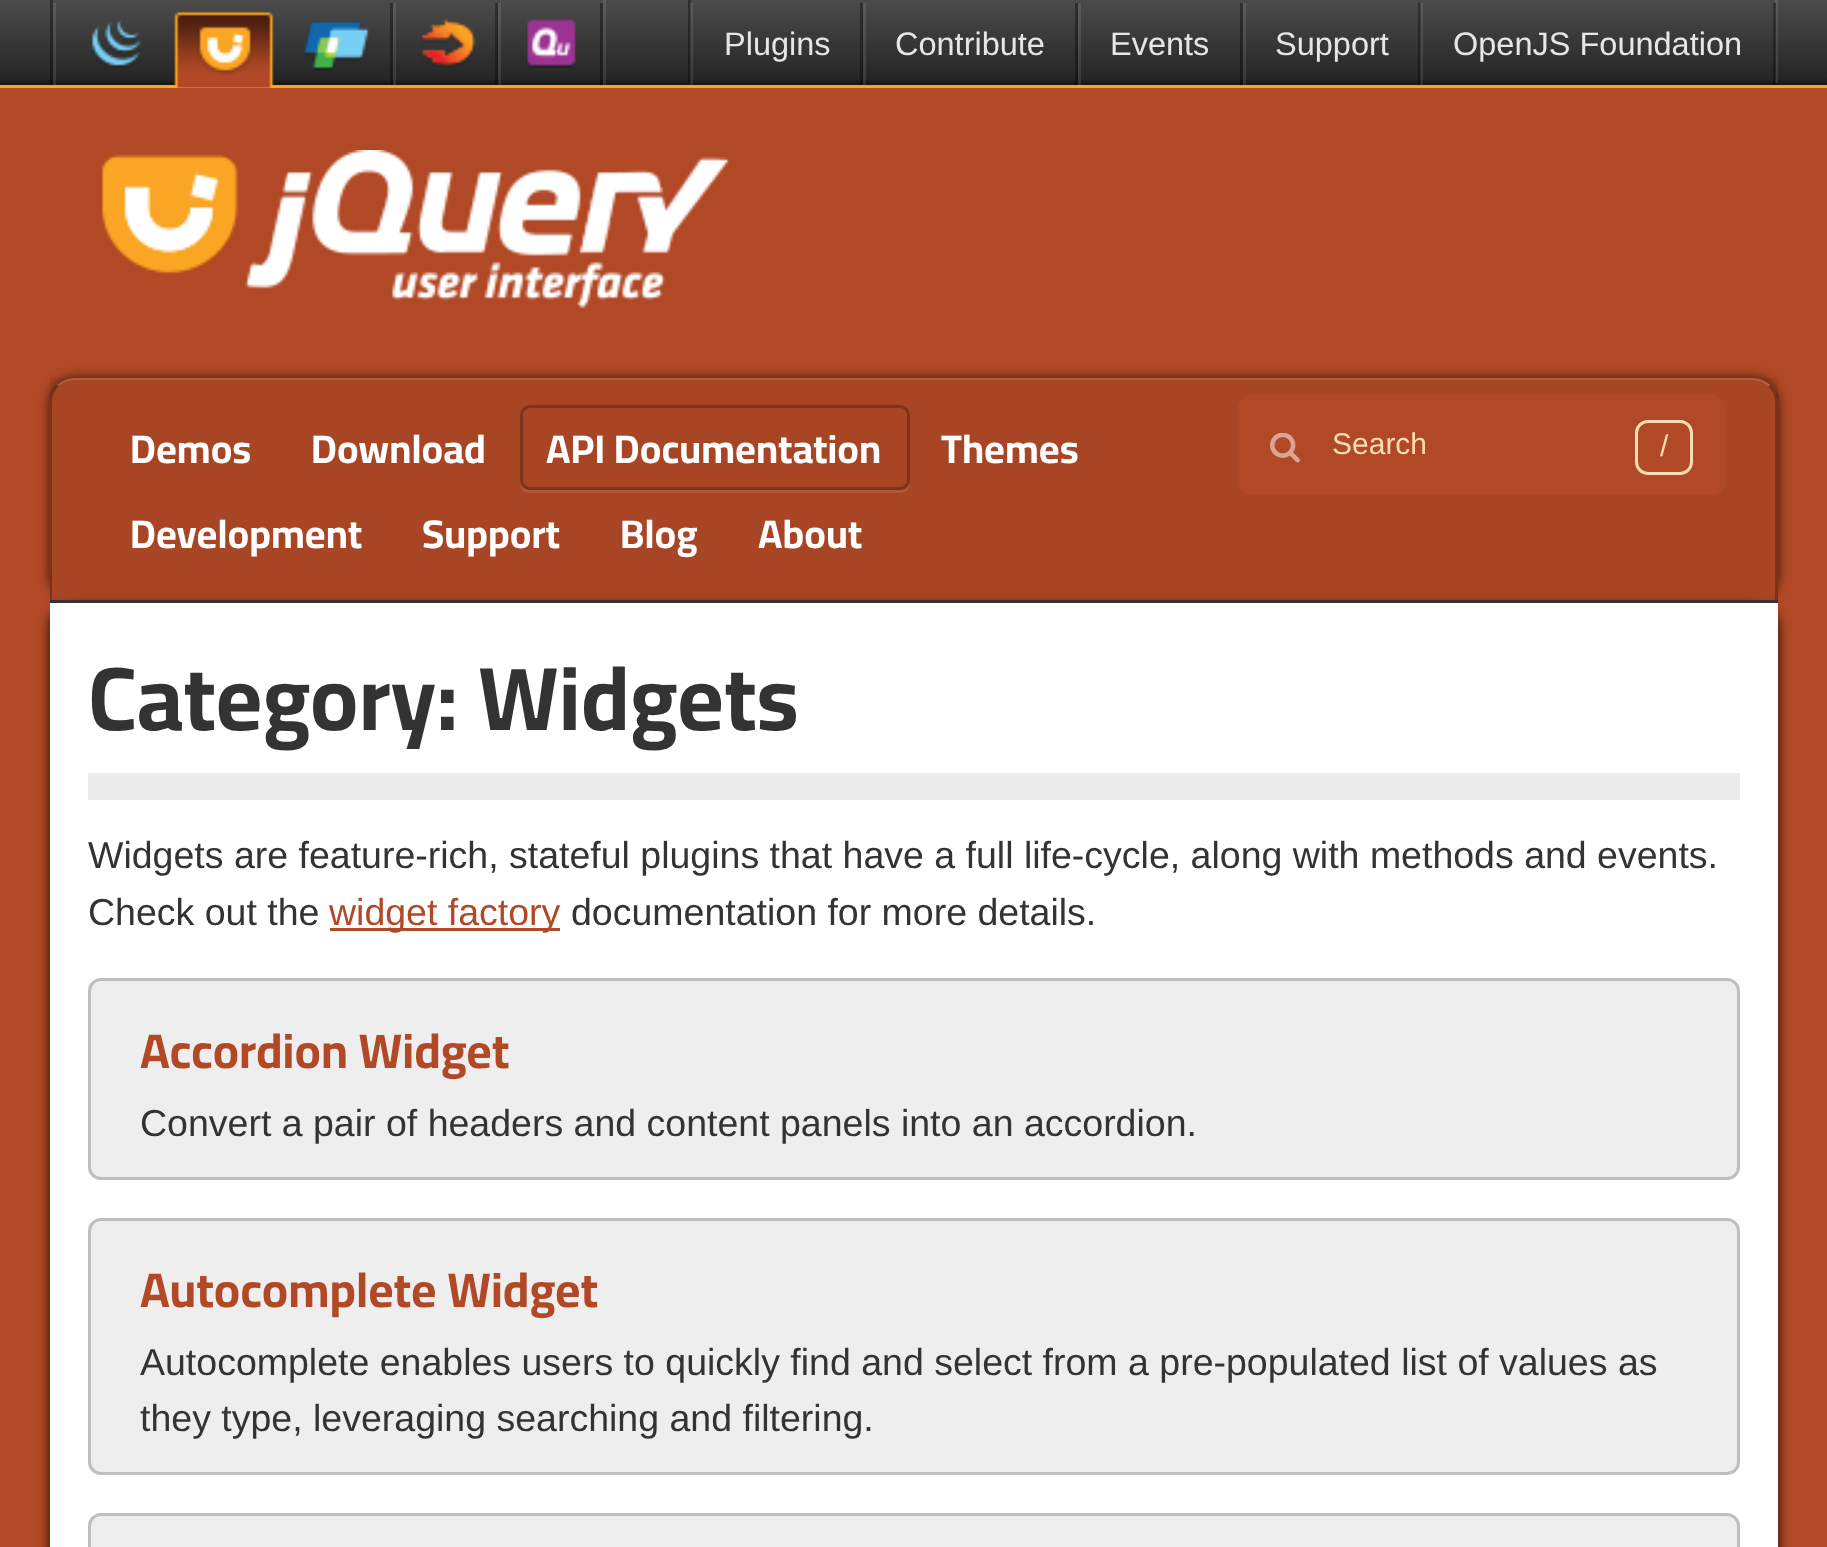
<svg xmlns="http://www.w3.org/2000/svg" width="1827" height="1547">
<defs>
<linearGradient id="g1" gradientUnits="userSpaceOnUse" x1="914" y1="0" x2="914" y2="85"><stop offset="0" stop-color="#4b4b4b"/><stop offset="1" stop-color="#232323"/></linearGradient>
<linearGradient id="g2" gradientUnits="userSpaceOnUse" x1="914" y1="0" x2="914" y2="85"><stop offset="0.92" stop-color="#141414" stop-opacity="0"/><stop offset="1" stop-color="#141414"/></linearGradient>
<clipPath id="clip1"><path d="M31 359h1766v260h-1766zm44 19h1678c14 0 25 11 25 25v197h-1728v-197c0-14 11-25 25-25z" clip-rule="evenodd"/></clipPath>
</defs>
<rect width="100%" height="100%" fill="#fff"/>
<rect width="1827" height="85" fill="url(#g1)"/>
<rect y="79" width="1827" height="6" fill="url(#g2)"/>
<rect x="603" width="3" height="85" fill="#ffffff1a"/>
<rect x="50" width="3" height="85" fill="#00000059"/>
<image x="91" y="19" width="50" height="49" href="media/1.png"/>
<rect x="53" y="3" width="3" height="82" fill="#ffffff1a"/>
<rect y="85" width="1827" height="3" fill="#faa523"/>
<image x="174" y="11" width="100" height="77" href="media/2.png"/>
<image x="304" y="21" width="65" height="50" href="media/3.png"/>
<rect x="390" y="3" width="3" height="82" fill="#00000059"/>
<image x="420" y="19" width="56" height="48" href="media/4.png"/>
<rect x="495" y="3" width="3" height="82" fill="#00000059"/>
<rect x="393" y="3" width="3" height="82" fill="#ffffff1a"/>
<image x="526" y="19" width="50" height="49" href="media/5.png"/>
<rect x="600" y="3" width="3" height="82" fill="#00000059"/>
<rect x="498" y="3" width="3" height="82" fill="#ffffff1a"/>
<rect x="1775" width="3" height="83" fill="#ffffff1a"/>
<rect x="688" width="3" height="83" fill="#00000059"/>
<rect x="860" y="3" width="3" height="82" fill="#00000059"/>
<rect x="690" y="3" width="3" height="82" fill="#ffffff1a"/>
<text x="724" y="55" style="font-family:Liberation Sans;font-size:32.5px;fill:#e6e6e6">Plugins</text>
<rect x="1075" y="3" width="3" height="82" fill="#00000059"/>
<rect x="863" y="3" width="3" height="82" fill="#ffffff1a"/>
<text x="895" y="55" style="font-family:Liberation Sans;font-size:32.5px;fill:#e6e6e6">Contribute</text>
<rect x="1240" y="3" width="3" height="82" fill="#00000059"/>
<rect x="1078" y="3" width="3" height="82" fill="#ffffff1a"/>
<text x="1110" y="55" style="font-family:Liberation Sans;font-size:32.5px;fill:#e6e6e6">Events</text>
<rect x="1418" y="3" width="3" height="82" fill="#00000059"/>
<rect x="1243" y="3" width="3" height="82" fill="#ffffff1a"/>
<text x="1275" y="55" style="font-family:Liberation Sans;font-size:32.5px;fill:#e6e6e6">Support</text>
<rect x="1773" y="3" width="3" height="82" fill="#00000059"/>
<rect x="1420" y="3" width="3" height="82" fill="#ffffff1a"/>
<text x="1453" y="55" style="font-family:Liberation Sans;font-size:32.5px;fill:#e6e6e6">OpenJS Foundation</text>
<rect y="88" width="1827" height="1459" fill="#b24926"/>
<image x="101" y="150" width="628" height="159" href="media/6.png"/>
<g clip-path="url(#clip1)">
<rect x="50" y="378" width="1728" height="222" rx="25" fill="#010101b3" filter="blur(6px)"/>
</g>
<rect x="50" y="378" width="1728" height="222" fill="#0c0c0c0f"/>
<path d="M75 378h1677c7 0 13 3 18 7l-2 2c-4-4-9-7-16-7h-1677c-6 0-12 2-16 6l-2-1c5-4 11-7 18-7z" fill="#fafafa24"/>
<path d="M1770 385c4 3 6 8 8 12v203h-3v-198c0-6-2-11-7-15z" fill="#02020247"/>
<path d="M50 600h2v-198c0-6 3-12 7-16l-2-1c-4 4-7 10-7 17z" fill="#02020247"/>
<text x="130" y="463" style="font-family:Cairo;font-size:40px;font-weight:bold;fill:#fff">Demos</text>
<text x="311" y="463" style="font-family:Cairo;font-size:40px;font-weight:bold;fill:#fff">Download</text>
<path d="M520 480v3c0 6 4 10 10 10h370c6 0 10-4 10-10v-3c0 6-4 10-10 10h-370c-6 0-10-4-10-10z" fill="#b1583a"/>
<rect x="521.5" y="406.5" width="387" height="82" rx="8.5" fill="none" stroke="#00000040" stroke-width="3"/>
<text x="546" y="463" style="font-family:Cairo;font-size:40px;font-weight:bold;fill:#fff">API Documentation</text>
<text x="941" y="463" style="font-family:Cairo;font-size:40px;font-weight:bold;fill:#fff">Themes</text>
<text x="130" y="548" style="font-family:Cairo;font-size:40px;font-weight:bold;fill:#fff">Development</text>
<text x="422" y="548" style="font-family:Cairo;font-size:40px;font-weight:bold;fill:#fff">Support</text>
<text x="620" y="548" style="font-family:Cairo;font-size:40px;font-weight:bold;fill:#fff">Blog</text>
<text x="758" y="548" style="font-family:Cairo;font-size:40px;font-weight:bold;fill:#fff">About</text>
<rect x="1238" y="395" width="487" height="100" rx="13" fill="#b24926"/>
<image x="1270" y="433" width="30" height="30" href="media/7.png"/>
<text x="1332" y="454" style="font-family:Liberation Sans;font-size:30px;fill:#ffddb2">Search</text>
<rect x="1636.5" y="421.5" width="55" height="52" rx="11.5" fill="none" stroke="#ffddb2" stroke-width="3"/>
<text x="1660" y="456" style="font-family:Liberation Sans;font-size:30px;fill:#ffddb2">/</text>
<rect x="65" y="608" width="1713" height="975" rx="18" fill="#010101de" filter="blur(6px)"/>
<rect x="50" y="608" width="1713" height="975" rx="18" fill="#010101de" filter="blur(6px)"/>
<rect x="50" y="603" width="1728" height="944" fill="#fff"/>
<rect x="50" y="600" width="1728" height="3" fill="#333"/>
<text x="88" y="730" style="font-family:Cairo;font-size:90px;font-weight:bold;fill:#333">Category: Widgets</text>
<rect x="88" y="773" width="1652" height="27" fill="#ececec"/>
<text x="88" y="868" style="font-family:Liberation Sans;font-size:37.5px;fill:#333">Widgets are feature-rich, stateful plugins that have a full life-cycle, along with methods and events.</text>
<text x="88" y="925" style="font-family:Liberation Sans;font-size:37.5px;fill:#333">Check out the</text>
<rect x="330" y="928" width="230" height="3" fill="#b24926"/>
<text x="329" y="925" style="font-family:Liberation Sans;font-size:37.5px;fill:#b24926">widget factory</text>
<text x="571" y="925" style="font-family:Liberation Sans;font-size:37.5px;fill:#333">documentation for more details.</text>
<rect x="88" y="978" width="1652" height="202" rx="13" fill="#eee"/>
<rect x="89.5" y="979.5" width="1649" height="199" rx="11.5" fill="none" stroke="#00000033" stroke-width="3"/>
<text x="140" y="1068" style="font-family:Cairo;font-size:48.75px;font-weight:bold;fill:#b24926">Accordion Widget</text>
<text x="140" y="1136" style="font-family:Liberation Sans;font-size:37.5px;fill:#333">Convert a pair of headers and content panels into an accordion.</text>
<rect x="88" y="1218" width="1652" height="257" rx="13" fill="#eee"/>
<rect x="89.5" y="1219.5" width="1649" height="254" rx="11.5" fill="none" stroke="#00000033" stroke-width="3"/>
<text x="140" y="1307" style="font-family:Cairo;font-size:48.75px;font-weight:bold;fill:#b24926">Autocomplete Widget</text>
<text x="140" y="1375" style="font-family:Liberation Sans;font-size:37.5px;fill:#333">Autocomplete enables users to quickly find and select from a pre-populated list of values as</text>
<text x="140" y="1431" style="font-family:Liberation Sans;font-size:37.5px;fill:#333">they type, leveraging searching and filtering.</text>
<rect x="88" y="1513" width="1652" height="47" rx="13" fill="#eee"/>
<rect x="89.5" y="1514.5" width="1649" height="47" rx="11.5" fill="none" stroke="#00000033" stroke-width="3"/>
</svg>
